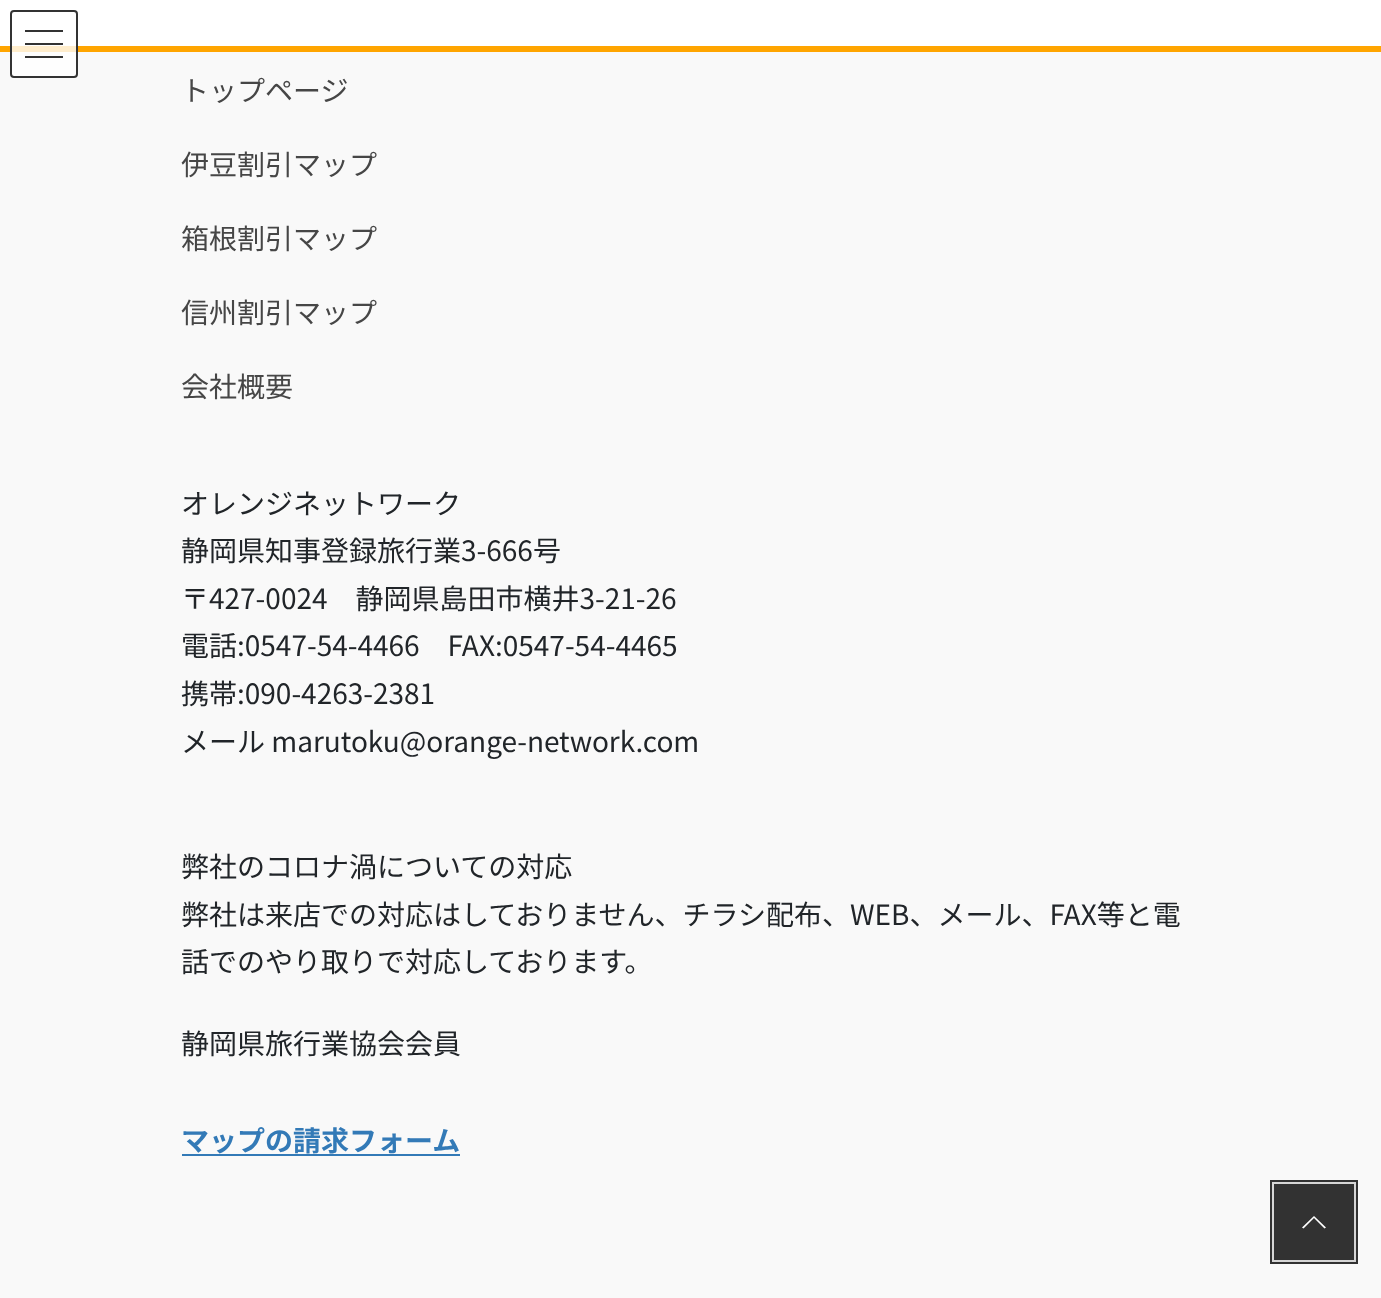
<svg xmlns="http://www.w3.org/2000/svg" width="1381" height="1298">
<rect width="100%" height="100%" fill="#fff"/>
<rect y="52" width="1381" height="1246" fill="#f9f9f9"/>
<rect y="46" width="1381" height="6" fill="#ffa500"/>
<rect x="10" y="10" width="68" height="68" rx="4" fill="#ffffffcc"/>
<rect x="25" y="30" width="38" height="2" fill="#333"/>
<rect x="25" y="43" width="38" height="2" fill="#333"/>
<rect x="25" y="56" width="38" height="2" fill="#333"/>
<rect x="11" y="11" width="66" height="66" rx="3" fill="none" stroke="#333" stroke-width="2"/>
<text x="181" y="101" style="font-family:Noto Sans JP;font-size:28px;fill:#464646">トップページ</text>
<text x="181" y="175" style="font-family:Noto Sans JP;font-size:28px;fill:#464646">伊豆割引マップ</text>
<text x="181" y="249" style="font-family:Noto Sans JP;font-size:28px;fill:#464646">箱根割引マップ</text>
<text x="181" y="323" style="font-family:Noto Sans JP;font-size:28px;fill:#464646">信州割引マップ</text>
<text x="181" y="397" style="font-family:Noto Sans JP;font-size:28px;fill:#464646">会社概要</text>
<text x="181" y="514" style="font-family:Noto Sans JP;font-size:28px;fill:#212529">オレンジネットワーク</text>
<text x="181" y="561" style="font-family:Noto Sans JP;font-size:28px;fill:#212529">静岡県知事登録旅行業3-666号</text>
<text x="181" y="609" style="font-family:Noto Sans JP;font-size:28px;fill:#212529">〒427-0024　静岡県島田市横井3-21-26</text>
<text x="181" y="656" style="font-family:Noto Sans JP;font-size:28px;fill:#212529">電話:0547-54-4466　FAX:0547-54-4465</text>
<text x="181" y="704" style="font-family:Noto Sans JP;font-size:28px;fill:#212529">携帯:090-4263-2381</text>
<text x="181" y="752" style="font-family:Noto Sans JP;font-size:28px;fill:#212529">メール marutoku@orange-network.com</text>
<text x="181" y="877" style="font-family:Noto Sans JP;font-size:28px;fill:#212529">弊社のコロナ渦についての対応</text>
<text x="181" y="925" style="font-family:Noto Sans JP;font-size:28px;fill:#212529">弊社は来店での対応はしておりません、チラシ配布、WEB、メール、FAX等と電</text>
<text x="181" y="972" style="font-family:Noto Sans JP;font-size:28px;fill:#212529">話でのやり取りで対応しております。</text>
<text x="181" y="1054" style="font-family:Noto Sans JP;font-size:28px;fill:#212529">静岡県旅行業協会会員</text>
<text x="181" y="1151" style="font-family:Noto Sans JP;font-size:28px;font-weight:bold;fill:#337ab7">マップの請求フォーム</text>
<rect x="182" y="1154" width="278" height="2" fill="#337ab7"/>
<rect x="1272" y="1182" width="84" height="80" fill="none" stroke="#323232" stroke-width="4"/>
<rect x="1273" y="1183" width="82" height="78" fill="none" stroke="#d6d6d6" stroke-width="2"/>
<rect x="1274" y="1184" width="80" height="76" fill="#323232"/>
<path d="M1326 1227.5l-1.5 1l-10.5-10.5l-10.5 10.5l-1.5-1l12-11.5z" fill="#fff"/>
</svg>
